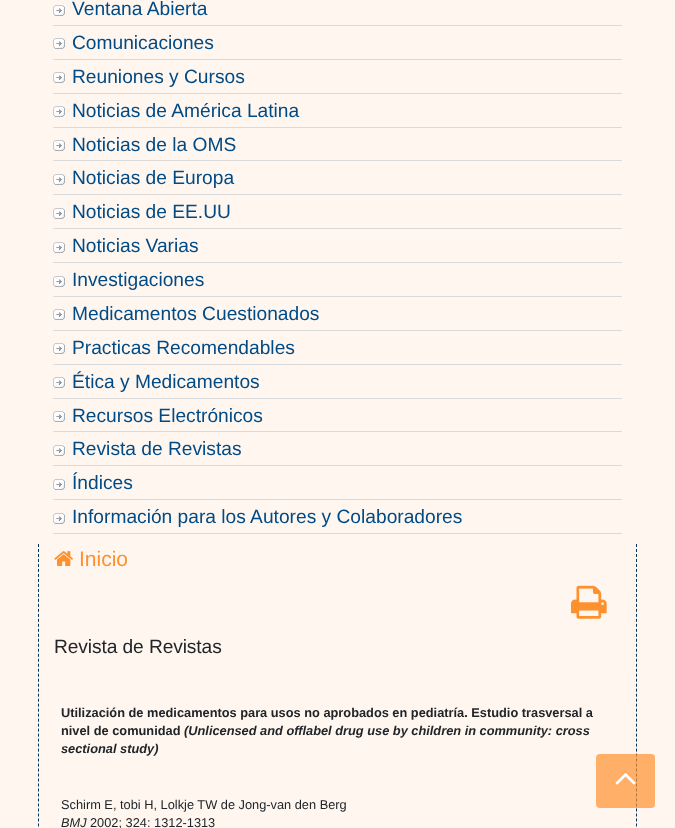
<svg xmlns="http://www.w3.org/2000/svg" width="675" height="828">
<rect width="100%" height="100%" fill="#fff7ef"/>
<image x="53" y="5" width="12" height="11" href="media/1.png"/>
<rect x="53" y="25" width="569" height="1" fill="#dadada"/>
<text x="72" y="15" style="font-family:Liberation Sans;font-size:19.2px;fill:#004a86">Ventana Abierta</text>
<image x="53" y="38" width="12" height="11" href="media/1.png"/>
<rect x="53" y="59" width="569" height="1" fill="#dadada"/>
<text x="72" y="49" style="font-family:Liberation Sans;font-size:19.2px;fill:#004a86">Comunicaciones</text>
<image x="53" y="72" width="12" height="11" href="media/1.png"/>
<rect x="53" y="93" width="569" height="1" fill="#dadada"/>
<text x="72" y="83" style="font-family:Liberation Sans;font-size:19.2px;fill:#004a86">Reuniones y Cursos</text>
<image x="53" y="106" width="12" height="11" href="media/1.png"/>
<rect x="53" y="127" width="569" height="1" fill="#dadada"/>
<text x="72" y="117" style="font-family:Liberation Sans;font-size:19.2px;fill:#004a86">Noticias de América Latina</text>
<image x="53" y="140" width="12" height="11" href="media/1.png"/>
<rect x="53" y="160" width="569" height="1" fill="#dadada"/>
<text x="72" y="151" style="font-family:Liberation Sans;font-size:19.2px;fill:#004a86">Noticias de la OMS</text>
<image x="53" y="174" width="12" height="11" href="media/1.png"/>
<rect x="53" y="194" width="569" height="1" fill="#dadada"/>
<text x="72" y="184" style="font-family:Liberation Sans;font-size:19.2px;fill:#004a86">Noticias de Europa</text>
<image x="53" y="208" width="12" height="11" href="media/1.png"/>
<rect x="53" y="228" width="569" height="1" fill="#dadada"/>
<text x="72" y="218" style="font-family:Liberation Sans;font-size:19.2px;fill:#004a86">Noticias de EE.UU</text>
<image x="53" y="242" width="12" height="11" href="media/1.png"/>
<rect x="53" y="262" width="569" height="1" fill="#dadada"/>
<text x="72" y="252" style="font-family:Liberation Sans;font-size:19.2px;fill:#004a86">Noticias Varias</text>
<image x="53" y="276" width="12" height="11" href="media/1.png"/>
<rect x="53" y="296" width="569" height="1" fill="#dadada"/>
<text x="72" y="286" style="font-family:Liberation Sans;font-size:19.2px;fill:#004a86">Investigaciones</text>
<image x="53" y="309" width="12" height="11" href="media/1.png"/>
<rect x="53" y="330" width="569" height="1" fill="#dadada"/>
<text x="72" y="320" style="font-family:Liberation Sans;font-size:19.2px;fill:#004a86">Medicamentos Cuestionados</text>
<image x="53" y="343" width="12" height="11" href="media/1.png"/>
<rect x="53" y="364" width="569" height="1" fill="#dadada"/>
<text x="72" y="354" style="font-family:Liberation Sans;font-size:19.2px;fill:#004a86">Practicas Recomendables</text>
<image x="53" y="377" width="12" height="11" href="media/1.png"/>
<rect x="53" y="398" width="569" height="1" fill="#dadada"/>
<text x="72" y="388" style="font-family:Liberation Sans;font-size:19.2px;fill:#004a86">Ética y Medicamentos</text>
<image x="53" y="411" width="12" height="11" href="media/1.png"/>
<rect x="53" y="431" width="569" height="1" fill="#dadada"/>
<text x="72" y="422" style="font-family:Liberation Sans;font-size:19.2px;fill:#004a86">Recursos Electrónicos</text>
<image x="53" y="445" width="12" height="11" href="media/1.png"/>
<rect x="53" y="465" width="569" height="1" fill="#dadada"/>
<text x="72" y="455" style="font-family:Liberation Sans;font-size:19.2px;fill:#004a86">Revista de Revistas</text>
<image x="53" y="479" width="12" height="11" href="media/1.png"/>
<rect x="53" y="499" width="569" height="1" fill="#dadada"/>
<text x="72" y="489" style="font-family:Liberation Sans;font-size:19.2px;fill:#004a86">Índices</text>
<image x="53" y="513" width="12" height="11" href="media/1.png"/>
<rect x="53" y="533" width="569" height="1" fill="#dadada"/>
<text x="72" y="523" style="font-family:Liberation Sans;font-size:19.2px;fill:#004a86">Información para los Autores y Colaboradores</text>
<path d="M636.5 544v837" fill="none" stroke="#00335e" stroke-dasharray="3 1.99"/>
<path d="M38.5 544v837" fill="none" stroke="#00335e" stroke-dasharray="3 1.99"/>
<image x="54" y="551" width="19" height="15" href="media/2.png"/>
<text x="79" y="566" style="font-family:Liberation Sans;font-size:21px;fill:#ff902e">Inicio</text>
<image x="571" y="585" width="36" height="34" href="media/3.png"/>
<text x="54" y="653" style="font-family:Liberation Sans;font-size:19.2px;letter-spacing:-0.1px;fill:#212529">Revista de Revistas</text>
<text x="61" y="717" style="font-family:Liberation Sans;font-size:12.8px;font-weight:bold;fill:#212529">Utilización de medicamentos para usos no aprobados en pediatría. Estudio trasversal a</text>
<text x="61" y="735" style="font-family:Liberation Sans;font-size:12.8px;font-weight:bold;fill:#212529">nivel de comunidad</text>
<text x="184" y="735" style="font-family:Liberation Sans;font-size:12.8px;font-weight:bold;font-style:italic;fill:#212529">(Unlicensed and offlabel drug use by children in community: cross</text>
<text x="61" y="753" style="font-family:Liberation Sans;font-size:12.8px;font-weight:bold;font-style:italic;fill:#212529">sectional study)</text>
<text x="61" y="809" style="font-family:Liberation Sans;font-size:12.8px;fill:#212529">Schirm E, tobi H, Lolkje TW de Jong-van den Berg</text>
<text x="61" y="827" style="font-family:Liberation Sans;font-size:12.8px;font-style:italic;fill:#212529">BMJ</text>
<text x="90" y="827" style="font-family:Liberation Sans;font-size:12.8px;fill:#212529">2002; 324: 1312-1313</text>
<rect x="596" y="754" width="59" height="54" rx="4" fill="#ff902eb3"/>
<image x="615" y="773" width="21" height="12" href="media/4.png"/>
</svg>
